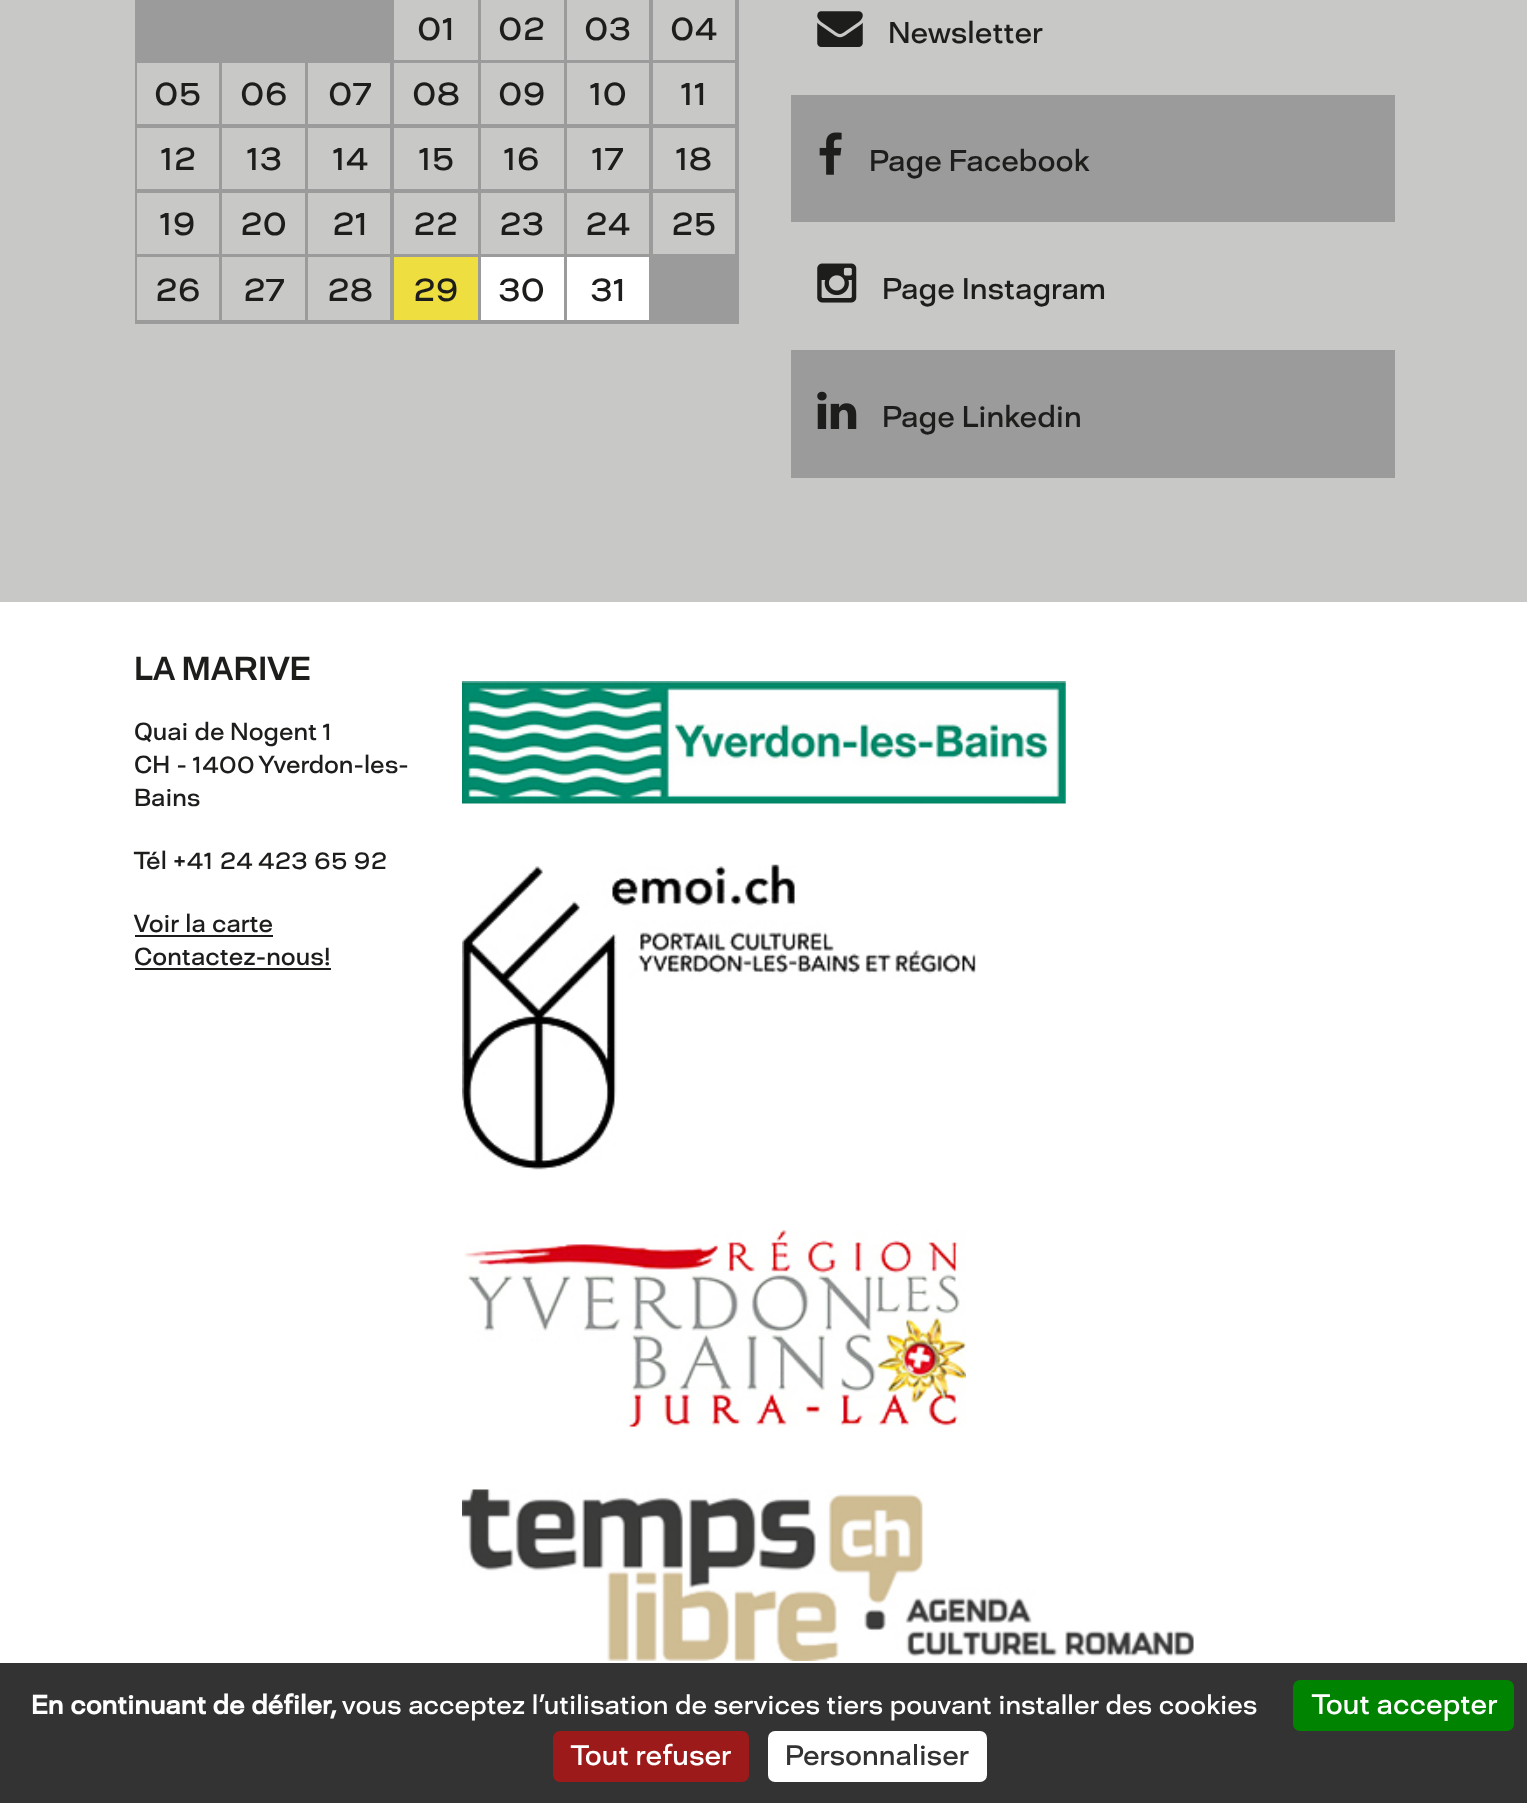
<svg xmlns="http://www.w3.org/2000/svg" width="1527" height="1803">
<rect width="100%" height="100%" fill="#c8c8c7"/>
<rect x="135" width="604" height="324" fill="#9b9b9b"/>
<rect x="394" width="84" height="60" fill="#c8c8c7"/>
<text x="417" y="40" style="font-family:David;font-size:33.25px;fill:#1d1d1b">01</text>
<rect x="481" width="83" height="60" fill="#c8c8c7"/>
<text x="498" y="40" style="font-family:David;font-size:33.25px;fill:#1d1d1b">02</text>
<rect x="567" width="82" height="60" fill="#c8c8c7"/>
<text x="584" y="40" style="font-family:David;font-size:33.25px;fill:#1d1d1b">03</text>
<rect x="653" width="82" height="60" fill="#c8c8c7"/>
<text x="670" y="40" style="font-family:David;font-size:33.25px;fill:#1d1d1b">04</text>
<rect x="137" y="63" width="82" height="61" fill="#c8c8c7"/>
<text x="154" y="105" style="font-family:David;font-size:33.25px;fill:#1d1d1b">05</text>
<rect x="222" y="63" width="83" height="61" fill="#c8c8c7"/>
<text x="240" y="105" style="font-family:David;font-size:33.25px;fill:#1d1d1b">06</text>
<rect x="308" y="63" width="82" height="61" fill="#c8c8c7"/>
<text x="328" y="105" style="font-family:David;font-size:33.25px;fill:#1d1d1b">07</text>
<rect x="394" y="63" width="84" height="61" fill="#c8c8c7"/>
<text x="412" y="105" style="font-family:David;font-size:33.25px;fill:#1d1d1b">08</text>
<rect x="481" y="63" width="83" height="61" fill="#c8c8c7"/>
<text x="498" y="105" style="font-family:David;font-size:33.25px;fill:#1d1d1b">09</text>
<rect x="567" y="63" width="82" height="61" fill="#c8c8c7"/>
<text x="589" y="105" style="font-family:David;font-size:33.25px;fill:#1d1d1b">10</text>
<rect x="653" y="63" width="82" height="61" fill="#c8c8c7"/>
<text x="680" y="105" style="font-family:David;font-size:33.25px;fill:#1d1d1b">11</text>
<rect x="137" y="128" width="82" height="61" fill="#c8c8c7"/>
<text x="160" y="170" style="font-family:David;font-size:33.25px;fill:#1d1d1b">12</text>
<rect x="222" y="128" width="83" height="61" fill="#c8c8c7"/>
<text x="246" y="170" style="font-family:David;font-size:33.25px;fill:#1d1d1b">13</text>
<rect x="308" y="128" width="82" height="61" fill="#c8c8c7"/>
<text x="332" y="170" style="font-family:David;font-size:33.25px;fill:#1d1d1b">14</text>
<rect x="394" y="128" width="84" height="61" fill="#c8c8c7"/>
<text x="418" y="170" style="font-family:David;font-size:33.25px;fill:#1d1d1b">15</text>
<rect x="481" y="128" width="83" height="61" fill="#c8c8c7"/>
<text x="503" y="170" style="font-family:David;font-size:33.25px;fill:#1d1d1b">16</text>
<rect x="567" y="128" width="82" height="61" fill="#c8c8c7"/>
<text x="591" y="170" style="font-family:David;font-size:33.25px;fill:#1d1d1b">17</text>
<rect x="653" y="128" width="82" height="61" fill="#c8c8c7"/>
<text x="675" y="170" style="font-family:David;font-size:33.25px;fill:#1d1d1b">18</text>
<rect x="137" y="193" width="82" height="61" fill="#c8c8c7"/>
<text x="159" y="235" style="font-family:David;font-size:33.25px;fill:#1d1d1b">19</text>
<rect x="222" y="193" width="83" height="61" fill="#c8c8c7"/>
<text x="240" y="235" style="font-family:David;font-size:33.25px;fill:#1d1d1b">20</text>
<rect x="308" y="193" width="82" height="61" fill="#c8c8c7"/>
<text x="332" y="235" style="font-family:David;font-size:33.25px;fill:#1d1d1b">21</text>
<rect x="394" y="193" width="84" height="61" fill="#c8c8c7"/>
<text x="413" y="235" style="font-family:David;font-size:33.25px;fill:#1d1d1b">22</text>
<rect x="481" y="193" width="83" height="61" fill="#c8c8c7"/>
<text x="499" y="235" style="font-family:David;font-size:33.25px;fill:#1d1d1b">23</text>
<rect x="567" y="193" width="82" height="61" fill="#c8c8c7"/>
<text x="585" y="235" style="font-family:David;font-size:33.25px;fill:#1d1d1b">24</text>
<rect x="653" y="193" width="82" height="61" fill="#c8c8c7"/>
<text x="671" y="235" style="font-family:David;font-size:33.25px;fill:#1d1d1b">25</text>
<rect x="137" y="257" width="82" height="63" fill="#c8c8c7"/>
<text x="155" y="301" style="font-family:David;font-size:33.25px;fill:#1d1d1b">26</text>
<rect x="222" y="257" width="83" height="63" fill="#c8c8c7"/>
<text x="243" y="301" style="font-family:David;font-size:33.25px;fill:#1d1d1b">27</text>
<rect x="308" y="257" width="82" height="63" fill="#c8c8c7"/>
<text x="327" y="301" style="font-family:David;font-size:33.25px;fill:#1d1d1b">28</text>
<rect x="394" y="257" width="84" height="63" fill="#efde3f"/>
<text x="413" y="301" style="font-family:David;font-size:33.25px;fill:#1d1d1b">29</text>
<rect x="481" y="257" width="83" height="63" fill="#fff"/>
<text x="498" y="301" style="font-family:David;font-size:33.25px;fill:#1d1d1b">30</text>
<rect x="567" y="257" width="82" height="63" fill="#fff"/>
<text x="590" y="301" style="font-family:David;font-size:33.25px;fill:#1d1d1b">31</text>
<image x="817" y="11" width="46" height="36" href="media/1.png"/>
<text x="888" y="43" style="font-family:David;font-size:29.75px;fill:#1d1d1b">Newsletter</text>
<rect x="791" y="95" width="604" height="127" fill="#9b9b9b"/>
<image x="819" y="132" width="23" height="43" href="media/2.png"/>
<text x="869" y="171" style="font-family:David;font-size:29.75px;fill:#1d1d1b">Page Facebook</text>
<image x="817" y="263" width="40" height="40" href="media/3.png"/>
<text x="882" y="299" style="font-family:David;font-size:29.75px;fill:#1d1d1b">Page Instagram</text>
<rect x="791" y="350" width="604" height="128" fill="#9b9b9b"/>
<image x="817" y="391" width="40" height="38" href="media/4.png"/>
<text x="882" y="427" style="font-family:David;font-size:29.75px;fill:#1d1d1b">Page Linkedin</text>
<rect y="602" width="1527" height="1061" fill="#fff"/>
<text x="134" y="680" style="font-family:David;font-size:33.25px;font-weight:500;fill:#1d1d1b">LA MARIVE</text>
<text x="134" y="740" style="font-family:David;font-size:24.5px;fill:#1d1d1b">Quai de Nogent 1</text>
<text x="134" y="773" style="font-family:David;font-size:24.5px;fill:#1d1d1b">CH - 1400 Yverdon-les-</text>
<text x="134" y="806" style="font-family:David;font-size:24.5px;fill:#1d1d1b">Bains</text>
<text x="134" y="869" style="font-family:David;font-size:24.5px;fill:#1d1d1b">Tél +41 24 423 65 92</text>
<text x="134" y="932" style="font-family:David;font-size:24.5px;fill:#1d1d1b">Voir la carte</text>
<rect x="135" y="935" width="138" height="2" fill="#1d1d1b"/>
<text x="134" y="965" style="font-family:David;font-size:24.5px;fill:#1d1d1b">Contactez-nous!</text>
<rect x="135" y="968" width="196" height="2" fill="#1d1d1b"/>
<image x="462" y="681" width="604" height="123" href="media/5.png"/>
<image x="462" y="864" width="514" height="306" href="media/6.png"/>
<image x="464" y="1230" width="502" height="199" href="media/7.png"/>
<image x="462" y="1489" width="732" height="172" href="media/8.png"/>
<rect y="1666" width="672" height="9" fill="#fff" filter="blur(2px)"/>
<rect y="1663" width="1527" height="140" fill="#333"/>
<text x="31" y="1714" style="font-family:David;font-size:26.25px;font-weight:bold;fill:#fff">En continuant de défiler,</text>
<text x="342" y="1714" style="font-family:David;font-size:26.25px;fill:#fff">vous acceptez l'utilisation de services tiers pouvant installer des cookies</text>
<rect x="1293" y="1680" width="221" height="51" rx="7" fill="#008300"/>
<text x="1312" y="1714" style="font-family:David;font-size:28px;fill:#fff">Tout accepter</text>
<rect x="553" y="1731" width="196" height="51" rx="7" fill="#9c1a1a"/>
<text x="571" y="1765" style="font-family:David;font-size:28px;fill:#fff">Tout refuser</text>
<rect x="768" y="1731" width="219" height="51" rx="7" fill="#fff"/>
<text x="785" y="1765" style="font-family:David;font-size:28px;fill:#333">Personnaliser</text>
</svg>
